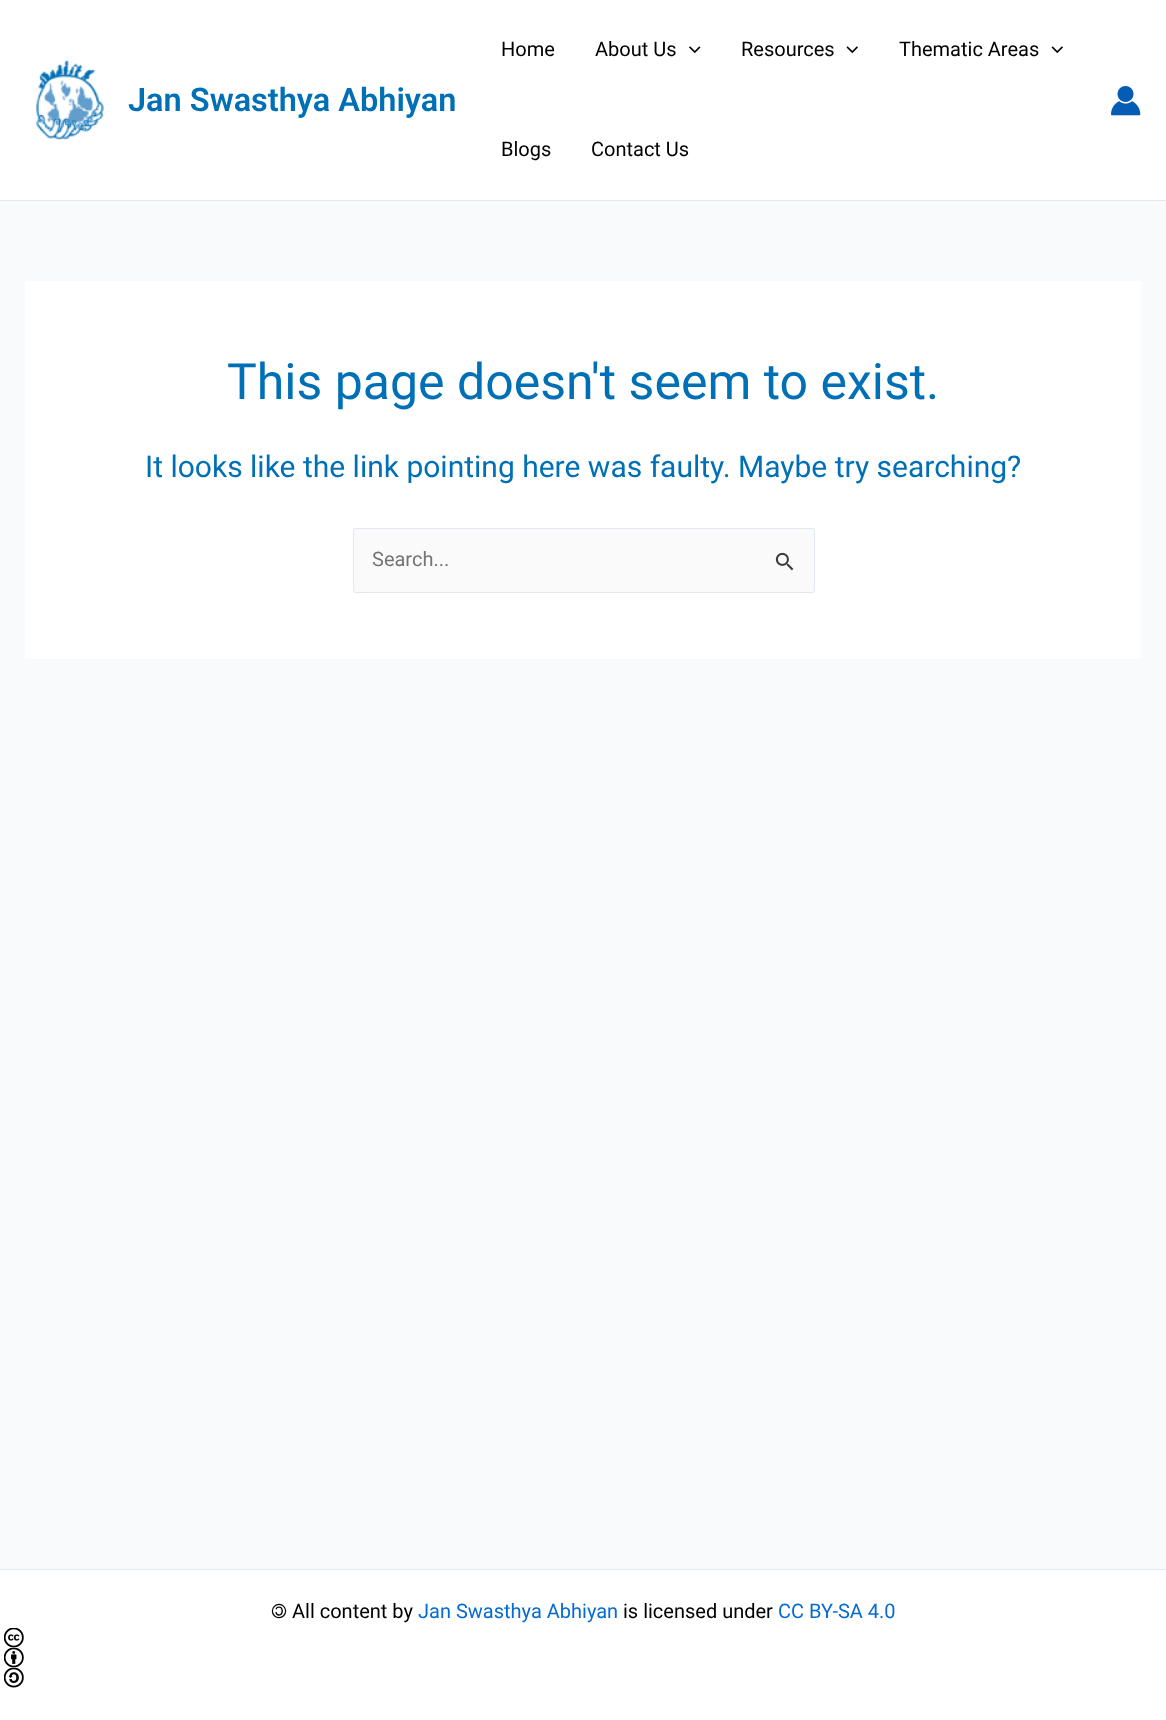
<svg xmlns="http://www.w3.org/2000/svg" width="1166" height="1720">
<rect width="100%" height="100%" fill="#f9fafb"/>
<rect width="1166" height="200" fill="#fff"/>
<rect y="200" width="1166" height="1" fill="#e2e8f0"/>
<image x="36" y="60" width="68" height="81" href="media/1.png"/>
<text x="128" y="111" style="font-family:Roboto;font-size:32.5px;font-weight:600;fill:#0070b6">Jan Swasthya Abhiyan</text>
<text x="501" y="56" style="font-family:Roboto;font-size:20px;fill:#020000">Home</text>
<text x="595" y="56" style="font-family:Roboto;font-size:20px;fill:#020000">About Us</text>
<image x="689" y="46" width="12" height="8" href="media/2.png"/>
<text x="741" y="56" style="font-family:Roboto;font-size:20px;fill:#020000">Resources</text>
<image x="846" y="46" width="12" height="8" href="media/3.png"/>
<text x="899" y="56" style="font-family:Roboto;font-size:20px;fill:#020000">Thematic Areas</text>
<image x="1051" y="46" width="12" height="8" href="media/3.png"/>
<text x="501" y="156" style="font-family:Roboto;font-size:20px;fill:#020000">Blogs</text>
<text x="591" y="156" style="font-family:Roboto;font-size:20px;fill:#020000">Contact Us</text>
<image x="1111" y="86" width="30" height="30" href="media/4.png"/>
<rect x="25" y="281" width="1116" height="378" fill="#fff"/>
<text x="227" y="399" style="font-family:Roboto;font-size:50px;fill:#0070b6">This page doesn't seem to exist.</text>
<text x="145" y="477" style="font-family:Roboto;font-size:30px;fill:#0070b6">It looks like the link pointing here was faulty. Maybe try searching?</text>
<rect x="353.5" y="528.5" width="461" height="64" rx="2" fill="#fafafa" stroke="#e2e8f0"/>
<text x="372" y="566" style="font-family:Roboto;font-size:20px;fill:#757575">Search...</text>
<image x="775" y="552" width="19" height="19" href="media/5.png"/>
<rect y="1570" width="1166" height="150" fill="#fff"/>
<rect y="1569" width="1166" height="1" fill="#e2e8f0"/>
<text x="271" y="1618" style="font-family:FreeSans;font-size:20px;fill:#020000">🄯</text>
<text x="292" y="1618" style="font-family:Roboto;font-size:20px;fill:#020000">All content by</text>
<text x="418" y="1618" style="font-family:Roboto;font-size:20px;fill:#046bd2">Jan Swasthya Abhiyan</text>
<text x="623" y="1618" style="font-family:Roboto;font-size:20px;fill:#020000">is licensed under</text>
<text x="778" y="1618" style="font-family:Roboto;font-size:20px;fill:#046bd2">CC BY-SA 4.0</text>
<image x="4" y="1628" width="20" height="20" href="media/6.png"/>
<image x="4" y="1648" width="20" height="20" href="media/7.png"/>
<image x="4" y="1668" width="20" height="20" href="media/8.png"/>
</svg>
